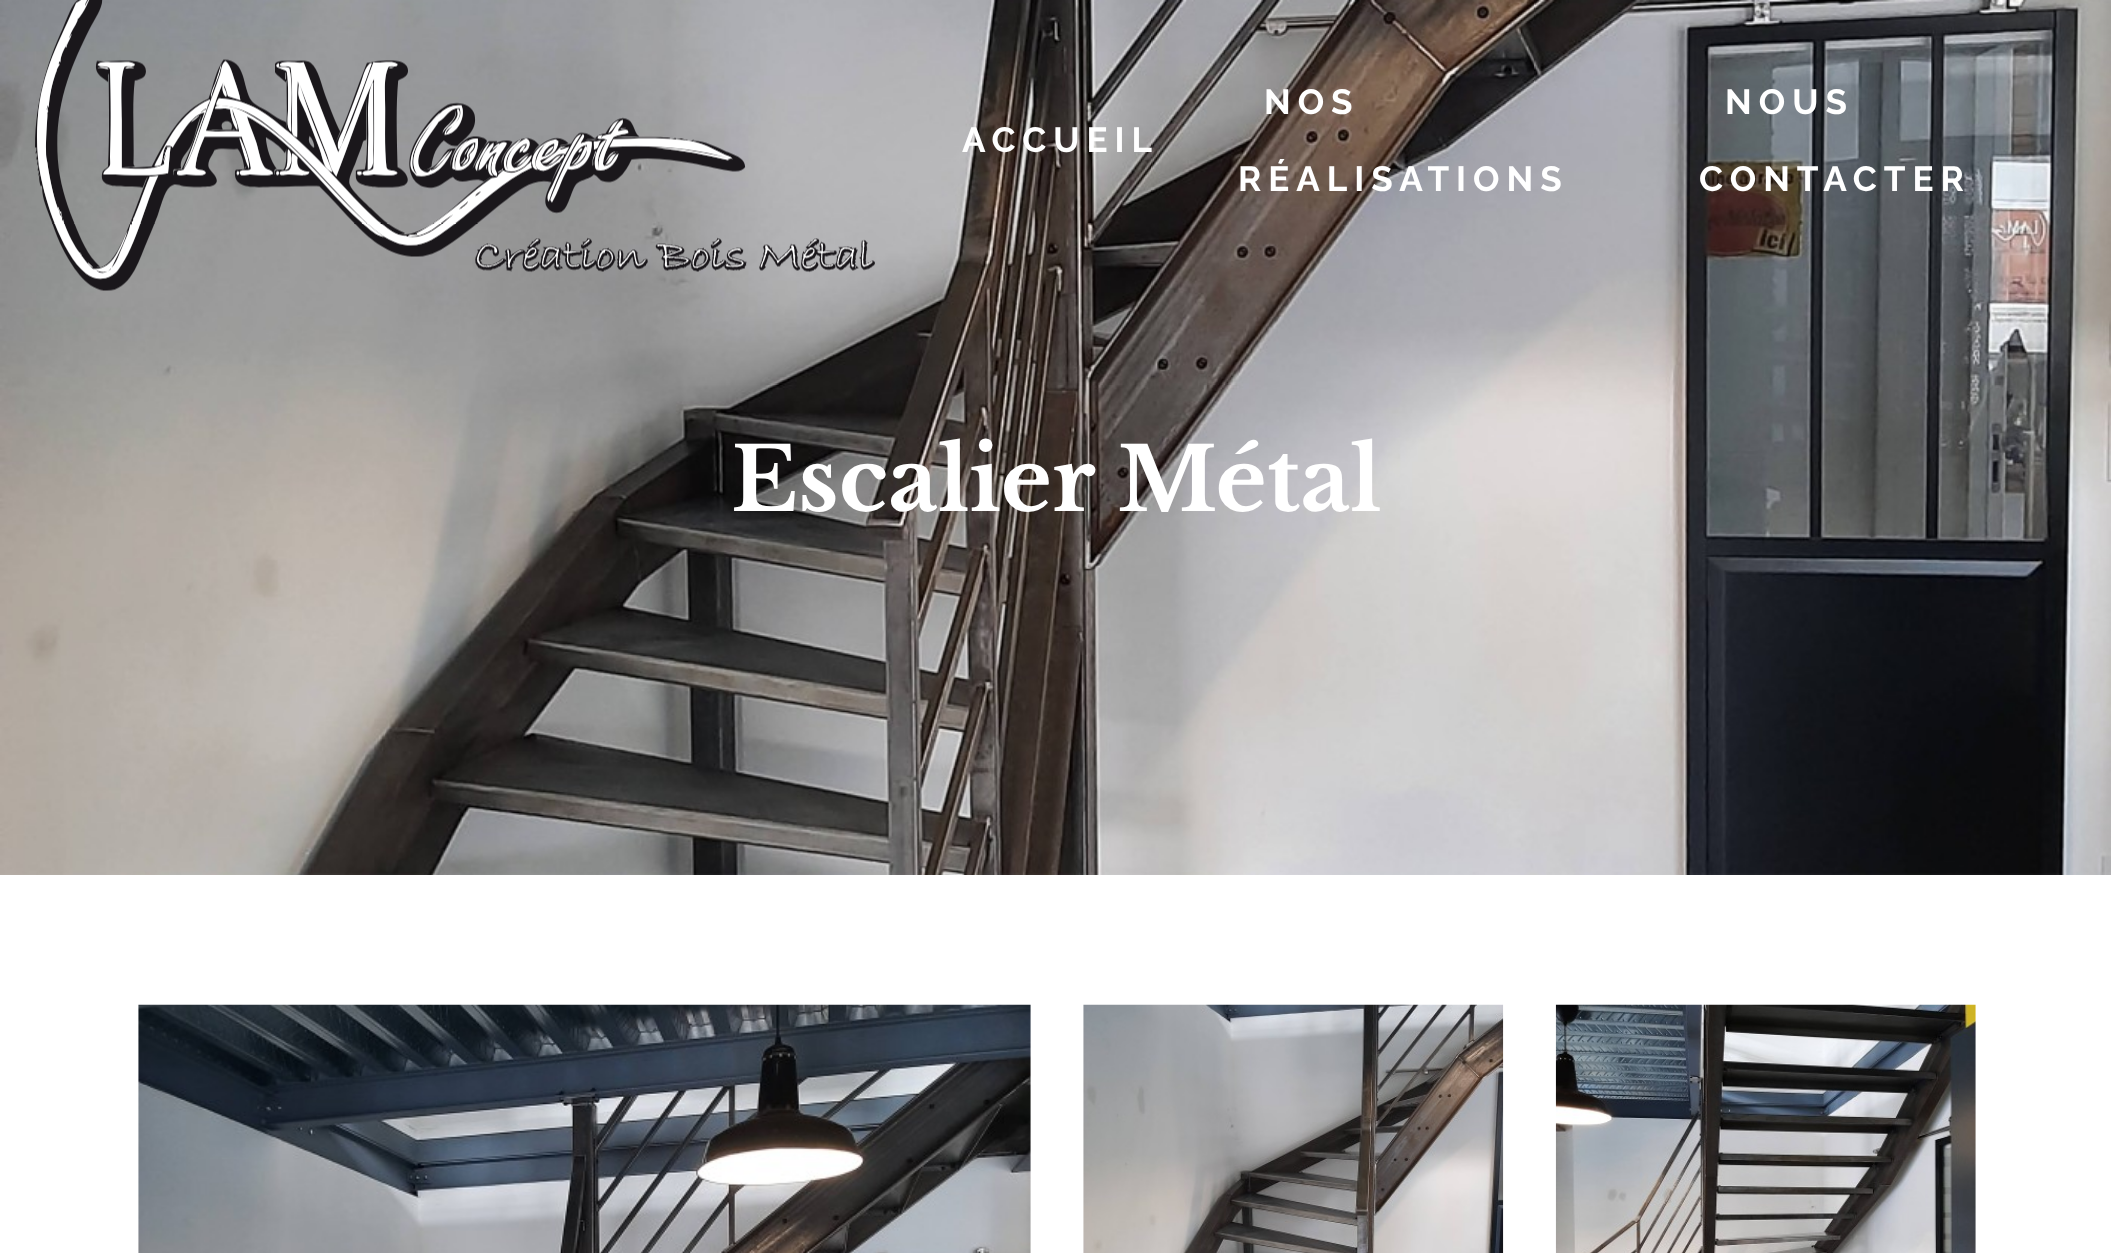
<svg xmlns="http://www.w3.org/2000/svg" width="2111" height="1253">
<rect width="100%" height="100%" fill="#fff"/>
<image x="0" y="0" width="2111" height="875" href="media/2.png"/>
<image x="35" y="0" width="840" height="291" href="media/1.png"/>
<text x="962" y="152" style="font-family:Raleway;font-size:35px;font-weight:bold;letter-spacing:7px;fill:#fff">ACCUEIL</text>
<text x="1264" y="114" style="font-family:Raleway;font-size:35px;font-weight:bold;letter-spacing:7px;fill:#fff">NOS</text>
<text x="1238" y="191" style="font-family:Raleway;font-size:35px;font-weight:bold;letter-spacing:7px;fill:#fff">RÉALISATIONS</text>
<text x="1725" y="114" style="font-family:Raleway;font-size:35px;font-weight:bold;letter-spacing:7px;fill:#fff">NOUS</text>
<text x="1699" y="191" style="font-family:Raleway;font-size:35px;font-weight:bold;letter-spacing:7px;fill:#fff">CONTACTER</text>
<text x="731" y="511" style="font-family:Libre Baskerville;font-size:87.5px;font-weight:bold;fill:#fff">Escalier Métal</text>
<image x="138" y="1004" width="893" height="249" href="media/3.png"/>
<image x="1083" y="1004" width="421" height="249" href="media/4.png"/>
<image x="1555" y="1004" width="421" height="249" href="media/5.png"/>
</svg>
